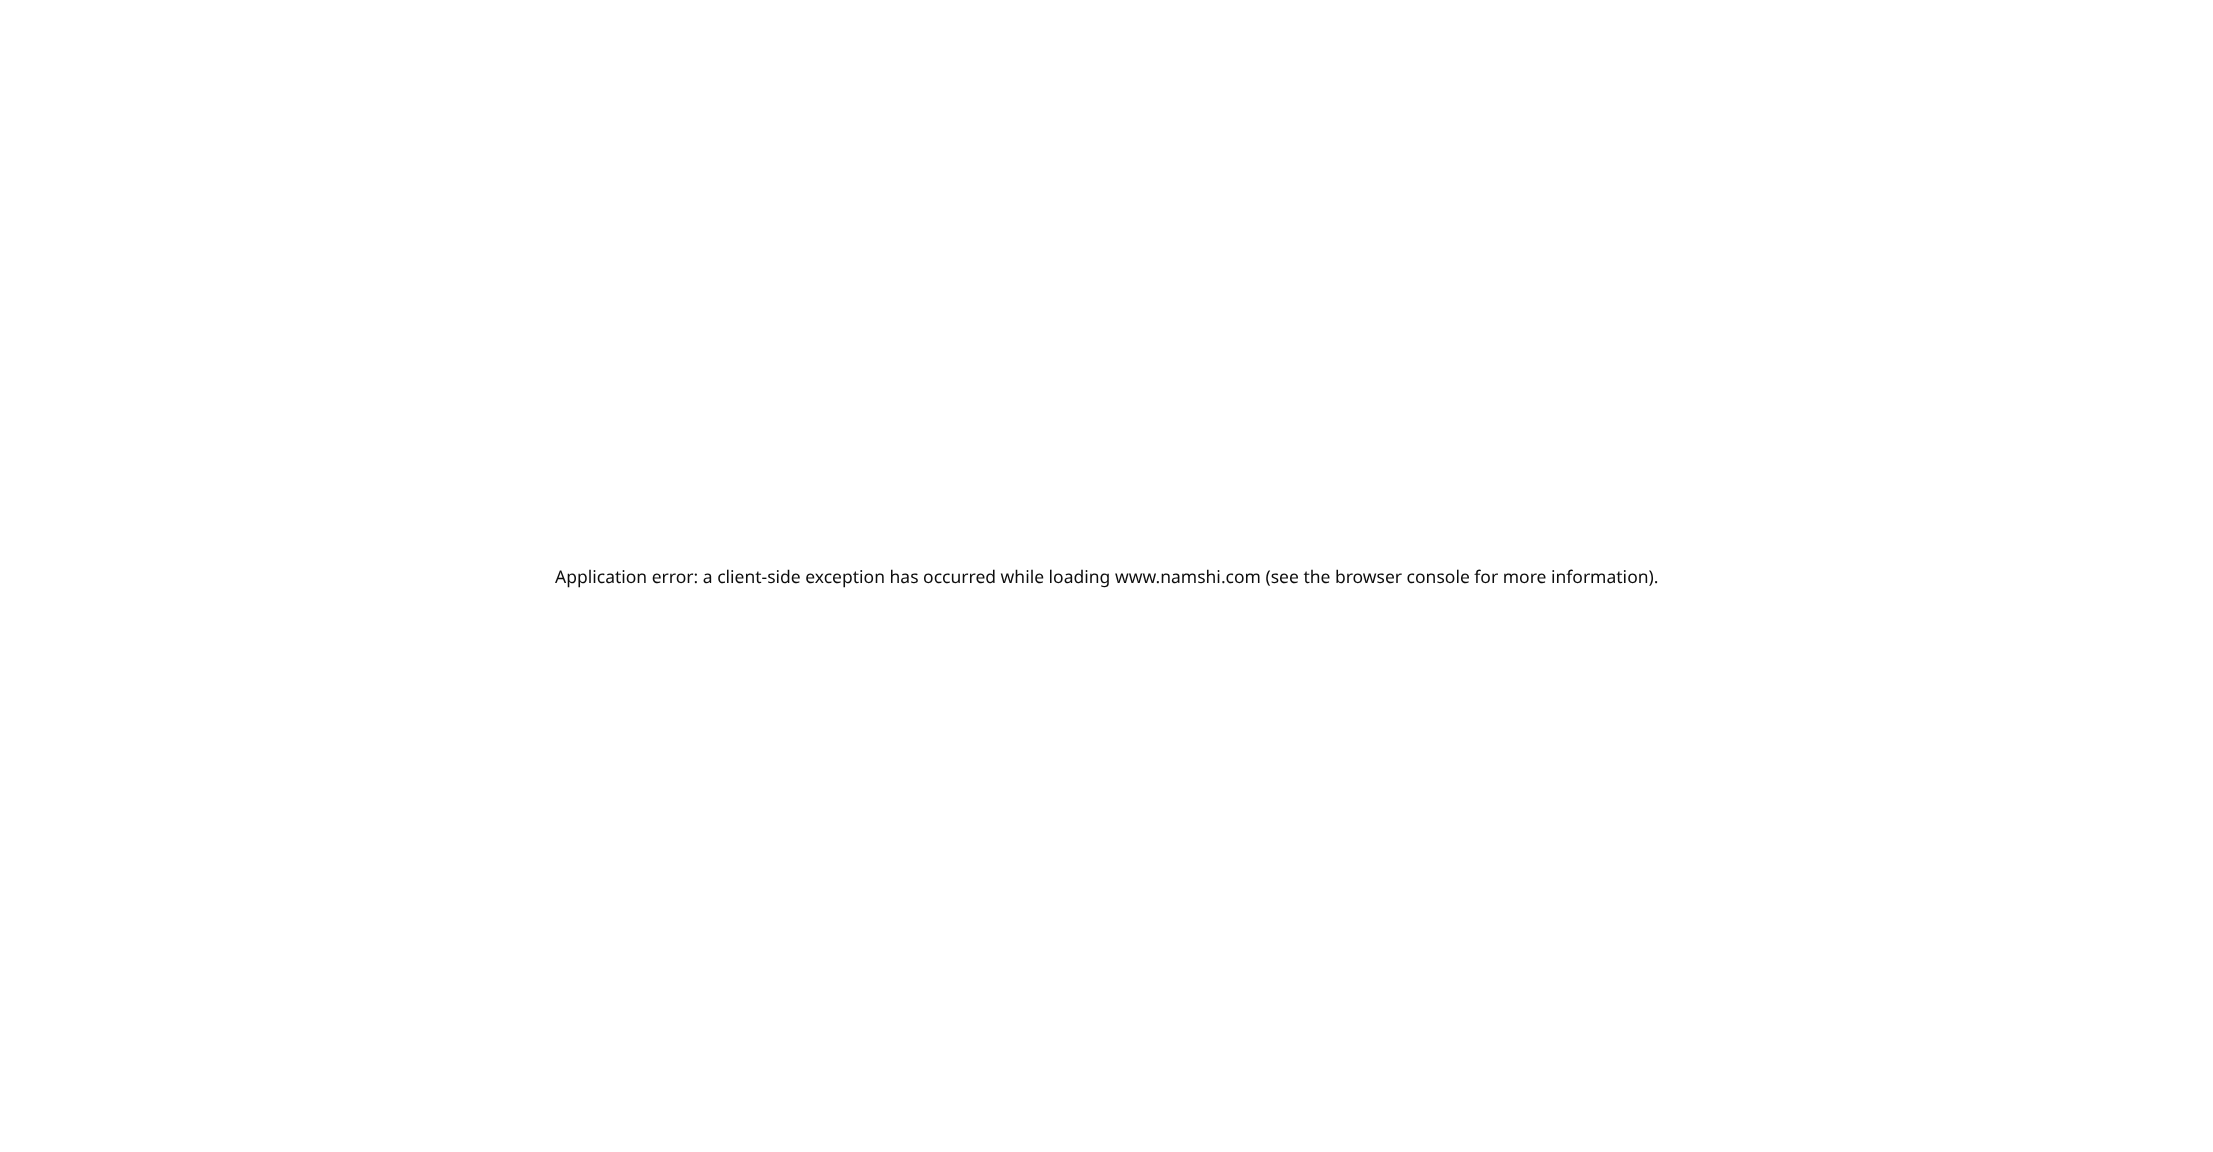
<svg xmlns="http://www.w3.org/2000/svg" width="2213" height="1152">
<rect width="100%" height="100%" fill="#fff"/>
<text x="555" y="583" style="font-family:Noto Sans;font-size:17.5px;fill:#0d0d0d">Application error: a client-side exception has occurred while loading www.namshi.com (see the browser console for more information).</text>
</svg>
